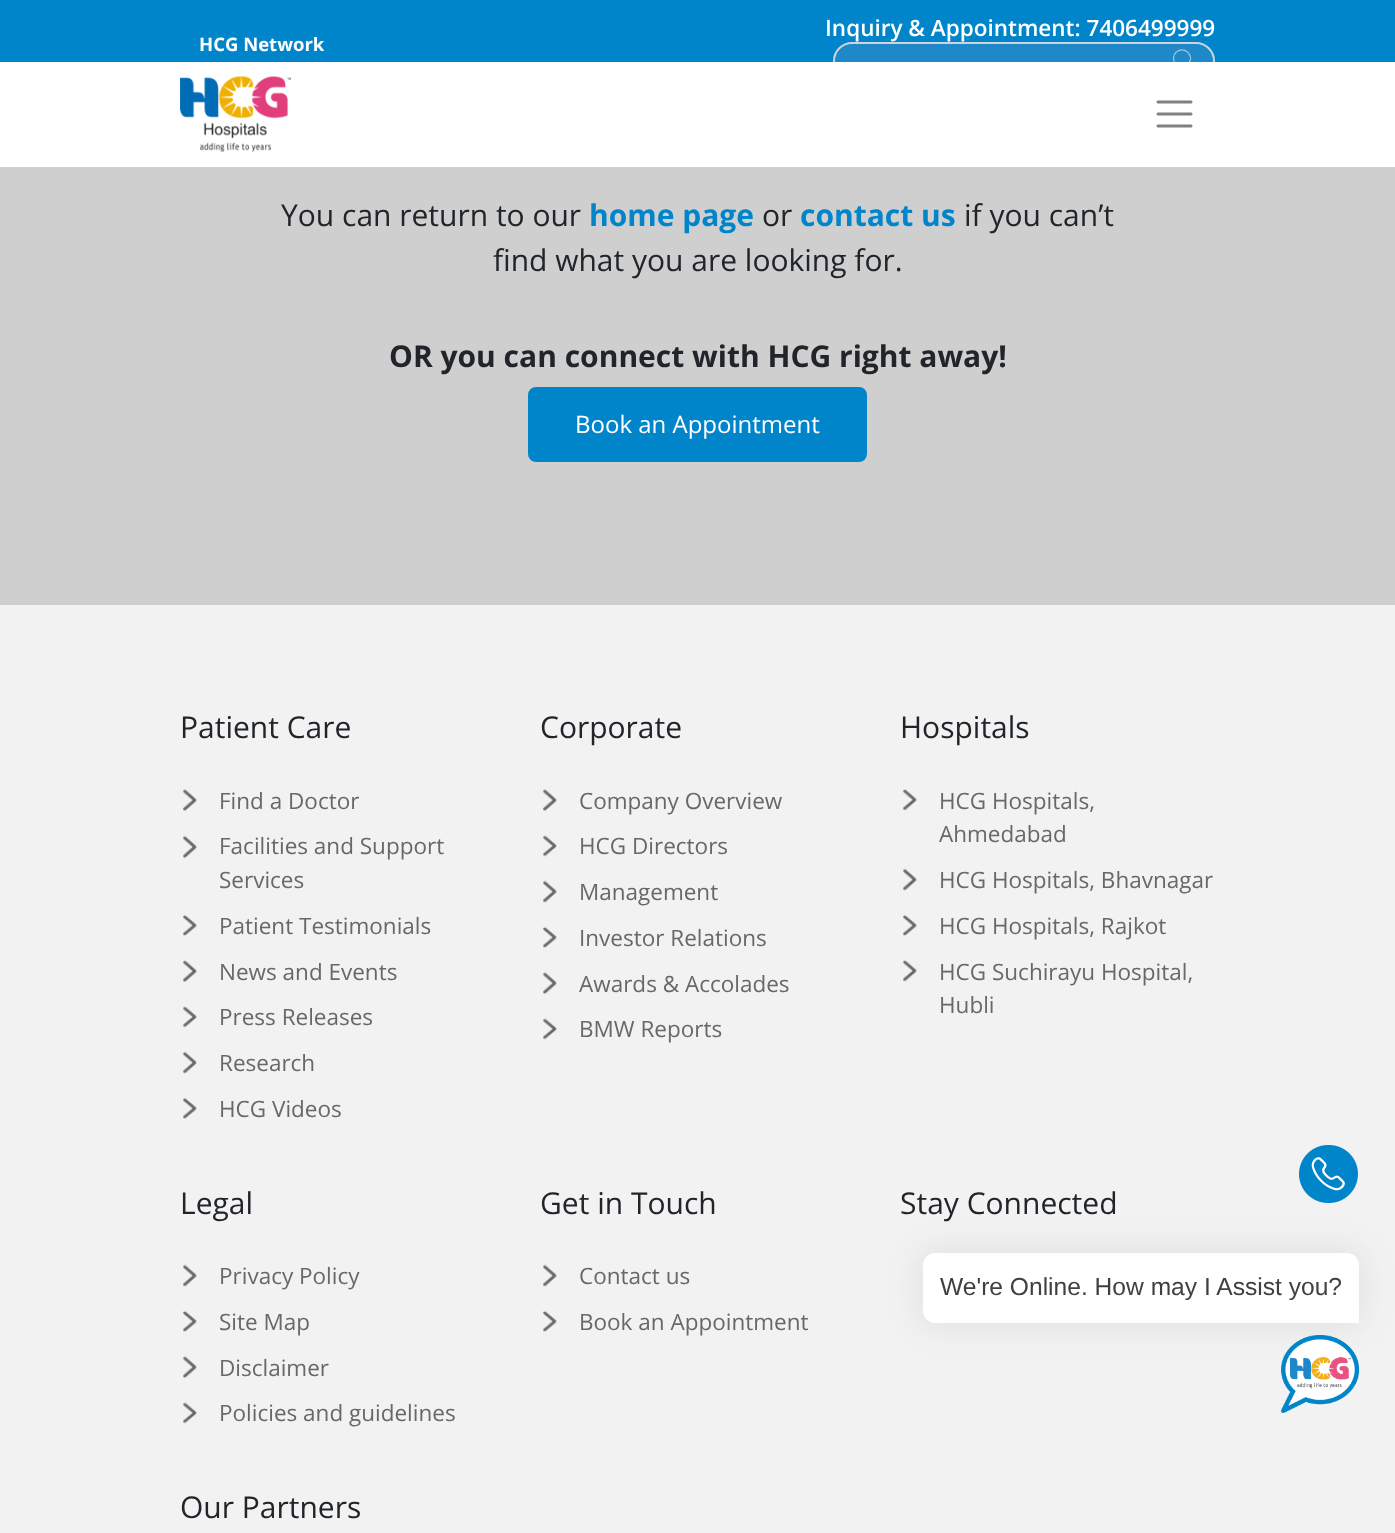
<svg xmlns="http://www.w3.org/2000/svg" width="1395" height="1533">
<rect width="100%" height="100%" fill="#cfcfcf"/>
<rect width="1395" height="62" fill="#0085cb"/>
<text x="825" y="36" style="font-family:Open Sans;font-size:22.5px;font-weight:600;fill:#fff">Inquiry &amp; Appointment: 7406499999</text>
<rect x="833" y="42" width="382" height="38" rx="19" fill="#1f88c9"/>
<image x="1173" y="49" width="19" height="13" href="media/1.png"/>
<rect x="834" y="43" width="380" height="36" rx="18" fill="none" stroke="#ced4da" stroke-width="2"/>
<text x="199" y="51" style="font-family:Open Sans;font-size:18.5px;font-weight:bold;fill:#fff">HCG Network</text>
<rect y="62" width="1395" height="105" fill="#fff"/>
<image x="180" y="76" width="111" height="76" href="media/2.png"/>
<path d="M1158 102h33m-33 12h33m-33 12h33" fill="none" stroke="#808080" stroke-width="3" stroke-linecap="round"/>
<text x="281" y="226" style="font-family:Open Sans;font-size:30px;fill:#212529">You can return to our</text>
<text x="589" y="226" style="font-family:Open Sans;font-size:30px;font-weight:bold;fill:#0085cb">home page</text>
<text x="762" y="226" style="font-family:Open Sans;font-size:30px;fill:#212529">or</text>
<text x="800" y="226" style="font-family:Open Sans;font-size:30px;font-weight:bold;fill:#0085cb">contact us</text>
<text x="964" y="226" style="font-family:Open Sans;font-size:30px;fill:#212529">if you can’t</text>
<text x="493" y="271" style="font-family:Open Sans;font-size:30px;fill:#212529">find what you are looking for.</text>
<text x="389" y="367" style="font-family:Open Sans;font-size:30px;font-weight:bold;fill:#212529">OR you can connect with HCG right away!</text>
<rect x="529" y="388" width="337" height="73" rx="7" fill="#0085cb" stroke="#0085cb" stroke-width="2"/>
<text x="575" y="433" style="font-family:Open Sans;font-size:24px;fill:#fff">Book an Appointment</text>
<rect y="605" width="1395" height="928" fill="#f2f2f2"/>
<text x="180" y="738" style="font-family:Open Sans;font-size:30px;fill:#212529">Patient Care</text>
<image x="183" y="789" width="14" height="23" href="media/3.png"/>
<text x="219" y="809" style="font-family:Open Sans;font-size:22.5px;fill:#686868">Find a Doctor</text>
<image x="183" y="835" width="14" height="24" href="media/4.png"/>
<text x="219" y="854" style="font-family:Open Sans;font-size:22.5px;fill:#686868">Facilities and Support</text>
<text x="219" y="888" style="font-family:Open Sans;font-size:22.5px;fill:#686868">Services</text>
<image x="183" y="914" width="14" height="22" href="media/5.png"/>
<text x="219" y="934" style="font-family:Open Sans;font-size:22.5px;fill:#686868">Patient Testimonials</text>
<image x="183" y="960" width="14" height="23" href="media/3.png"/>
<text x="219" y="980" style="font-family:Open Sans;font-size:22.5px;fill:#686868">News and Events</text>
<image x="183" y="1006" width="14" height="22" href="media/6.png"/>
<text x="219" y="1025" style="font-family:Open Sans;font-size:22.5px;fill:#686868">Press Releases</text>
<image x="183" y="1051" width="14" height="23" href="media/7.png"/>
<text x="219" y="1071" style="font-family:Open Sans;font-size:22.5px;fill:#686868">Research</text>
<image x="183" y="1097" width="14" height="22" href="media/5.png"/>
<text x="219" y="1117" style="font-family:Open Sans;font-size:22.5px;fill:#686868">HCG Videos</text>
<text x="540" y="738" style="font-family:Open Sans;font-size:30px;fill:#212529">Corporate</text>
<image x="543" y="789" width="14" height="23" href="media/3.png"/>
<text x="579" y="809" style="font-family:Open Sans;font-size:22.5px;fill:#686868">Company Overview</text>
<image x="543" y="835" width="14" height="22" href="media/6.png"/>
<text x="579" y="854" style="font-family:Open Sans;font-size:22.5px;fill:#686868">HCG Directors</text>
<image x="543" y="880" width="14" height="23" href="media/7.png"/>
<text x="579" y="900" style="font-family:Open Sans;font-size:22.5px;fill:#686868">Management</text>
<image x="543" y="926" width="14" height="22" href="media/5.png"/>
<text x="579" y="946" style="font-family:Open Sans;font-size:22.5px;fill:#686868">Investor Relations</text>
<image x="543" y="972" width="14" height="23" href="media/3.png"/>
<text x="579" y="992" style="font-family:Open Sans;font-size:22.5px;fill:#686868">Awards &amp; Accolades</text>
<image x="543" y="1018" width="14" height="22" href="media/6.png"/>
<text x="579" y="1037" style="font-family:Open Sans;font-size:22.5px;fill:#686868">BMW Reports</text>
<text x="900" y="738" style="font-family:Open Sans;font-size:30px;fill:#212529">Hospitals</text>
<image x="903" y="789" width="14" height="22" href="media/8.png"/>
<text x="939" y="809" style="font-family:Open Sans;font-size:22.5px;fill:#686868">HCG Hospitals,</text>
<text x="939" y="842" style="font-family:Open Sans;font-size:22.5px;fill:#686868">Ahmedabad</text>
<image x="903" y="868" width="14" height="23" href="media/7.png"/>
<text x="939" y="888" style="font-family:Open Sans;font-size:22.5px;fill:#686868">HCG Hospitals, Bhavnagar</text>
<image x="903" y="914" width="14" height="22" href="media/5.png"/>
<text x="939" y="934" style="font-family:Open Sans;font-size:22.5px;fill:#686868">HCG Hospitals, Rajkot</text>
<image x="903" y="960" width="14" height="22" href="media/8.png"/>
<text x="939" y="980" style="font-family:Open Sans;font-size:22.5px;fill:#686868">HCG Suchirayu Hospital,</text>
<text x="939" y="1013" style="font-family:Open Sans;font-size:22.5px;fill:#686868">Hubli</text>
<image x="1299" y="1145" width="59" height="58" href="media/9.png"/>
<text x="180" y="1214" style="font-family:Open Sans;font-size:30px;fill:#212529">Legal</text>
<image x="183" y="1264" width="14" height="23" href="media/7.png"/>
<text x="219" y="1284" style="font-family:Open Sans;font-size:22.5px;fill:#686868">Privacy Policy</text>
<image x="183" y="1310" width="14" height="22" href="media/5.png"/>
<text x="219" y="1330" style="font-family:Open Sans;font-size:22.5px;fill:#686868">Site Map</text>
<image x="183" y="1356" width="14" height="23" href="media/3.png"/>
<text x="219" y="1376" style="font-family:Open Sans;font-size:22.5px;fill:#686868">Disclaimer</text>
<image x="183" y="1402" width="14" height="22" href="media/6.png"/>
<text x="219" y="1421" style="font-family:Open Sans;font-size:22.5px;fill:#686868">Policies and guidelines</text>
<text x="540" y="1214" style="font-family:Open Sans;font-size:30px;fill:#212529">Get in Touch</text>
<image x="543" y="1264" width="14" height="23" href="media/7.png"/>
<text x="579" y="1284" style="font-family:Open Sans;font-size:22.5px;fill:#686868">Contact us</text>
<image x="543" y="1310" width="14" height="22" href="media/5.png"/>
<text x="579" y="1330" style="font-family:Open Sans;font-size:22.5px;fill:#686868">Book an Appointment</text>
<text x="900" y="1214" style="font-family:Open Sans;font-size:30px;fill:#212529">Stay Connected</text>
<text x="180" y="1518" style="font-family:Open Sans;font-size:30px;fill:#212529">Our Partners</text>
<rect x="923" y="1253" width="436" height="70" rx="12" fill="#403f421f" filter="blur(18px)"/>
<path d="M935 1253h412c6.5 0 12 5.5 12 12v58h-424c-6.5 0-12-5.5-12-12v-46c0-6.5 5.5-12 12-12z" fill="#fff"/>
<text x="940" y="1295" style="font-family:Liberation Sans;font-size:24.6px;fill:#403f42">We're Online. How may I Assist you?</text>
<image x="1281" y="1335" width="78" height="78" href="media/10.png"/>
</svg>
